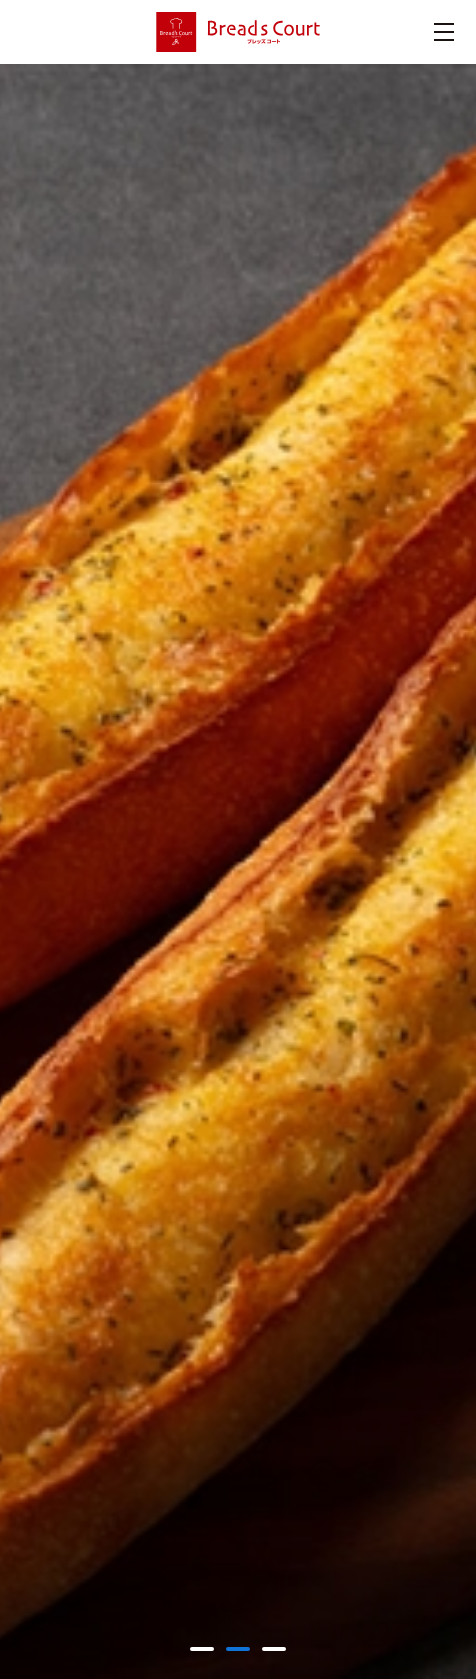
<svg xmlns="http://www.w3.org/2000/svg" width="476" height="1679">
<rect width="100%" height="100%" fill="#fff"/>
<image x="156" y="12" width="164" height="40" href="media/1.png"/>
<rect x="434" y="23" width="20" height="2" fill="#1a1311"/>
<rect x="434" y="31" width="20" height="2" fill="#1a1311"/>
<rect x="434" y="39" width="20" height="2" fill="#1a1311"/>
<image x="0" y="64" width="476" height="1615" href="media/2.png"/>
<rect x="190" y="1647" width="24" height="4" rx="2" fill="#fff"/>
<rect x="226" y="1647" width="24" height="4" rx="2" fill="#1073d8"/>
<rect x="262" y="1647" width="24" height="4" rx="2" fill="#fff"/>
</svg>
